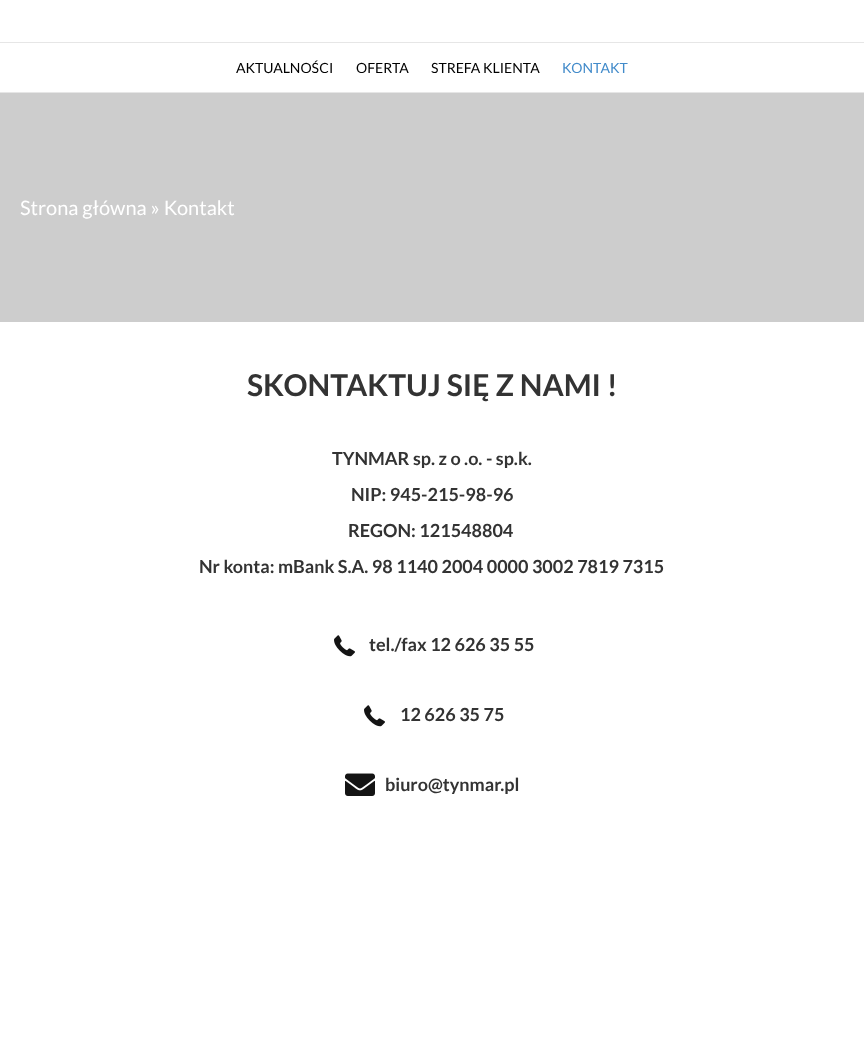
<svg xmlns="http://www.w3.org/2000/svg" width="864" height="1063">
<rect width="100%" height="100%" fill="#fff"/>
<rect y="42" width="864" height="1" fill="#e6e6e6"/>
<rect y="92" width="864" height="1" fill="#e6e6e6"/>
<text x="236" y="73" style="font-family:Lato;font-size:14px;fill:#000">AKTUALNOŚCI</text>
<text x="356" y="73" style="font-family:Lato;font-size:14px;fill:#000">OFERTA</text>
<text x="431" y="73" style="font-family:Lato;font-size:14px;fill:#000">STREFA KLIENTA</text>
<text x="562" y="73" style="font-family:Lato;font-size:14px;fill:#428bca">KONTAKT</text>
<rect y="93" width="864" height="229" fill="#cdcdcd"/>
<text x="20" y="215" style="font-family:Lato;font-size:20px;fill:#fff">Strona główna » Kontakt</text>
<text x="247" y="396" style="font-family:Lato;font-size:30px;font-weight:bold;fill:#333">SKONTAKTUJ SIĘ Z NAMI !</text>
<text x="332" y="465" style="font-family:Lato;font-size:18px;font-weight:bold;fill:#333">TYNMAR sp. z o .o. - sp.k.</text>
<text x="351" y="501" style="font-family:Lato;font-size:18px;font-weight:bold;fill:#333">NIP: 945-215-98-96</text>
<text x="348" y="537" style="font-family:Lato;font-size:18px;font-weight:bold;fill:#333">REGON: 121548804</text>
<text x="199" y="573" style="font-family:Lato;font-size:18px;font-weight:bold;fill:#333">Nr konta: mBank S.A. 98 1140 2004 0000 3002 7819 7315</text>
<image x="334" y="635" width="21" height="22" href="media/1.png"/>
<text x="369" y="651" style="font-family:Lato;font-size:18px;font-weight:bold;fill:#333">tel./fax 12 626 35 55</text>
<image x="364" y="705" width="21" height="22" href="media/1.png"/>
<text x="400" y="721" style="font-family:Lato;font-size:18px;font-weight:bold;fill:#333">12 626 35 75</text>
<image x="345" y="773" width="30" height="23" href="media/2.png"/>
<text x="385" y="791" style="font-family:Lato;font-size:18px;font-weight:bold;fill:#333">biuro@tynmar.pl</text>
</svg>
